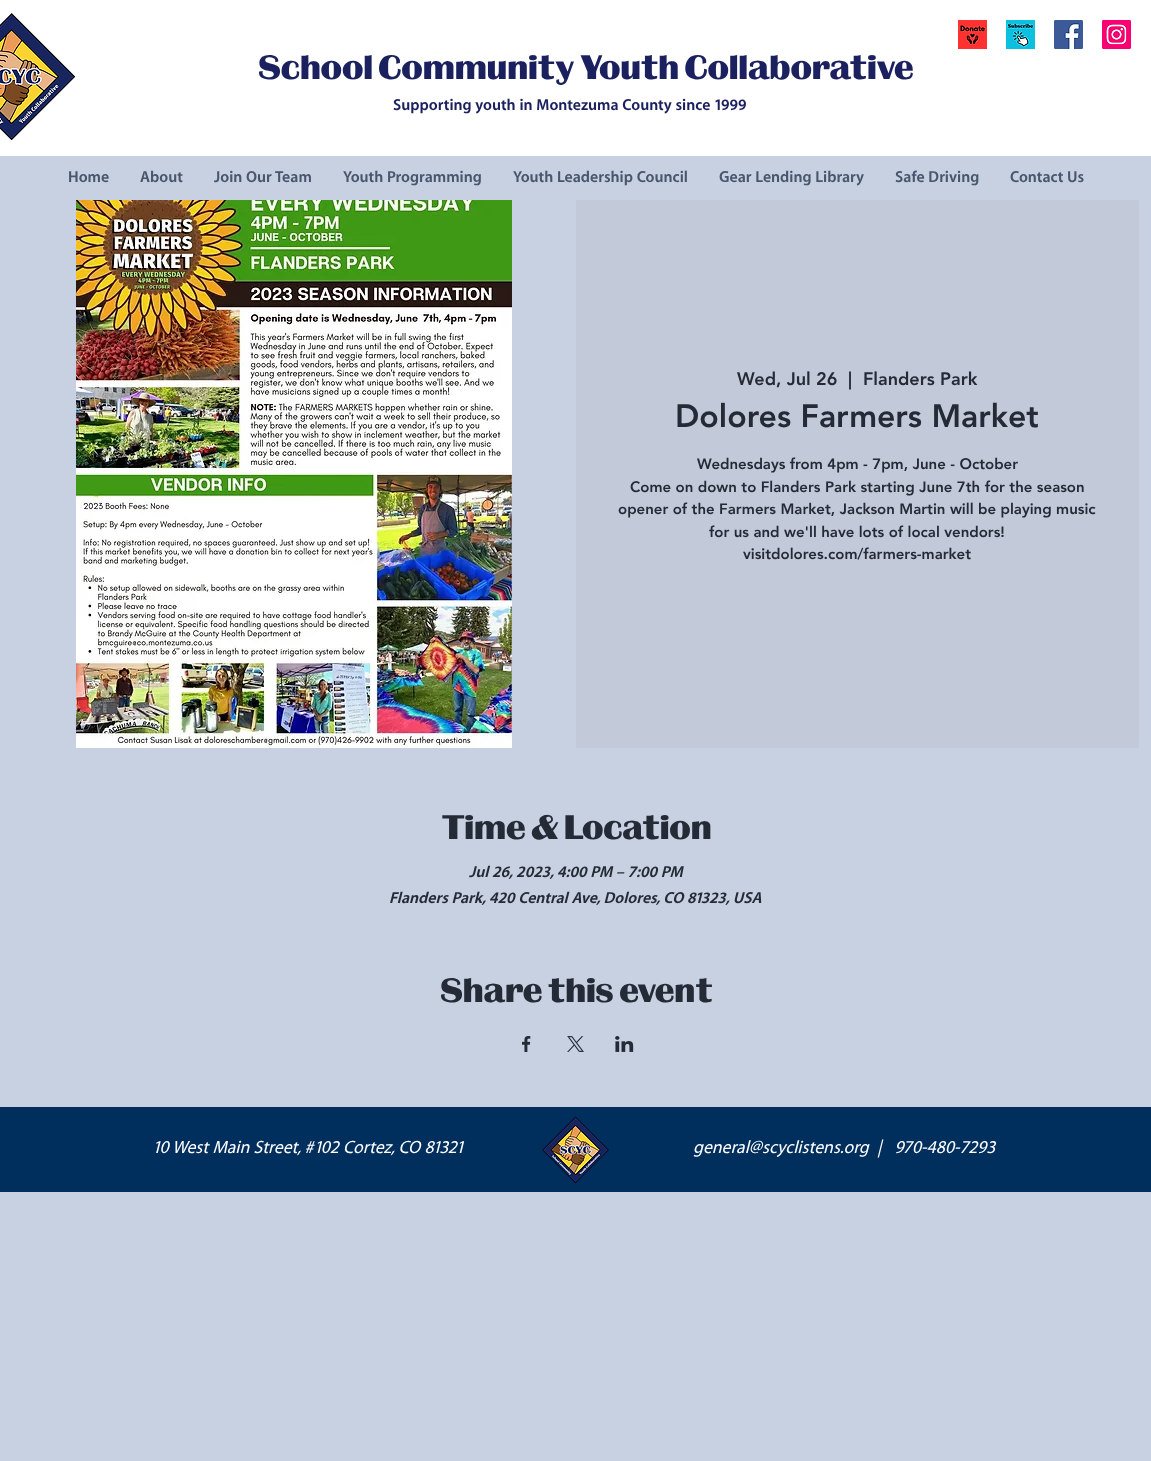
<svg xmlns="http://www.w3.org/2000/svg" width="1151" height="1461">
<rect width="100%" height="100%" fill="#c7d1e1"/>
<rect width="1151" height="156" fill="#fff"/>
<image x="958" y="20" width="29" height="29" href="media/1.png"/>
<image x="1006" y="20" width="29" height="29" href="media/2.png"/>
<image x="1054" y="20" width="29" height="29" href="media/3.png"/>
<image x="1102" y="20" width="29" height="29" href="media/4.png"/>
<image x="0" y="13" width="75" height="127" href="media/5.png"/>
<text x="257" y="79" style="font-family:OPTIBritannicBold;font-size:30px;font-weight:bold;fill:#1b215f">School Community Youth Collaborative</text>
<text x="393" y="110" style="font-family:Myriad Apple;font-size:16px;font-weight:bold;fill:#1b215f">Supporting youth in Montezuma County since 1999</text>
<text x="68" y="182" style="font-family:Myriad Apple;font-size:16px;font-weight:bold;fill:#48566e">Home</text>
<text x="140" y="182" style="font-family:Myriad Apple;font-size:16px;font-weight:bold;fill:#48566e">About</text>
<text x="214" y="182" style="font-family:Myriad Apple;font-size:16px;font-weight:bold;fill:#48566e">Join Our Team</text>
<text x="343" y="182" style="font-family:Myriad Apple;font-size:16px;font-weight:bold;fill:#48566e">Youth Programming</text>
<text x="513" y="182" style="font-family:Myriad Apple;font-size:16px;font-weight:bold;fill:#48566e">Youth Leadership Council</text>
<text x="719" y="182" style="font-family:Myriad Apple;font-size:16px;font-weight:bold;fill:#48566e">Gear Lending Library</text>
<text x="895" y="182" style="font-family:Myriad Apple;font-size:16px;font-weight:bold;fill:#48566e">Safe Driving</text>
<text x="1010" y="182" style="font-family:Myriad Apple;font-size:16px;font-weight:bold;fill:#48566e">Contact Us</text>
<image x="76" y="200" width="436" height="548" href="media/6.png"/>
<rect x="576" y="200" width="563" height="548" fill="#c2c9d8"/>
<text x="737" y="385" style="font-family:'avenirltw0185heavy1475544';font-size:18px;font-weight:900;fill:#242b37">Wed, Jul 26</text>
<text x="848" y="385" style="font-family:'avenirltw0185heavy1475544';font-size:18px;font-weight:900;fill:#242b37">|</text>
<text x="863" y="385" style="font-family:'avenirltw0185heavy1475544';font-size:18px;font-weight:900;fill:#242b37">Flanders Park</text>
<text x="675" y="427" style="font-family:'avenirltw0185heavy1475544';font-size:32px;font-weight:900;fill:#242b37">Dolores Farmers Market</text>
<text x="697" y="469" style="font-family:'avenirltw0185heavy1475544';font-size:15px;font-weight:900;fill:#242b37">Wednesdays from 4pm - 7pm, June - October</text>
<text x="630" y="492" style="font-family:'avenirltw0185heavy1475544';font-size:15px;font-weight:900;fill:#242b37">Come on down to Flanders Park starting June 7th for the season</text>
<text x="618" y="514" style="font-family:'avenirltw0185heavy1475544';font-size:15px;font-weight:900;fill:#242b37">opener of the Farmers Market, Jackson Martin will be playing music</text>
<text x="709" y="537" style="font-family:'avenirltw0185heavy1475544';font-size:15px;font-weight:900;fill:#242b37">for us and we'll have lots of local vendors!</text>
<text x="743" y="559" style="font-family:'avenirltw0185heavy1475544';font-size:15px;font-weight:900;fill:#242b37">visitdolores.com/farmers-market</text>
<text x="440" y="839" style="font-family:OPTIBritannicBold;font-size:30px;font-weight:bold;fill:#242b37">Time &amp; Location</text>
<text x="469" y="877" style="font-family:Myriad Apple;font-size:16px;font-weight:bold;font-style:italic;fill:#242b37">Jul 26, 2023, 4:00 PM – 7:00 PM</text>
<text x="389" y="903" style="font-family:Myriad Apple;font-size:16px;font-weight:bold;font-style:italic;fill:#242b37">Flanders Park, 420 Central Ave, Dolores, CO 81323, USA</text>
<text x="439" y="1002" style="font-family:OPTIBritannicBold;font-size:30px;font-weight:bold;fill:#242b37">Share this event</text>
<image x="522" y="1036" width="9" height="16" href="media/7.png"/>
<image x="567" y="1036" width="17" height="16" href="media/8.png"/>
<image x="615" y="1036" width="19" height="16" href="media/9.png"/>
<rect y="1107" width="1151" height="85" fill="#002e5d"/>
<text x="152" y="1153" style="font-family:Myriad Apple;font-size:18px;font-weight:500;font-style:italic;fill:#fff">10 West Main Street, #102 Cortez, CO 81321</text>
<image x="542" y="1116" width="67" height="68" href="media/10.png"/>
<text x="693" y="1153" style="font-family:Myriad Apple;font-size:18px;font-weight:500;font-style:italic;fill:#fff" xml:space="preserve">general@scyclistens.org  |   970-480-7293</text>
</svg>
